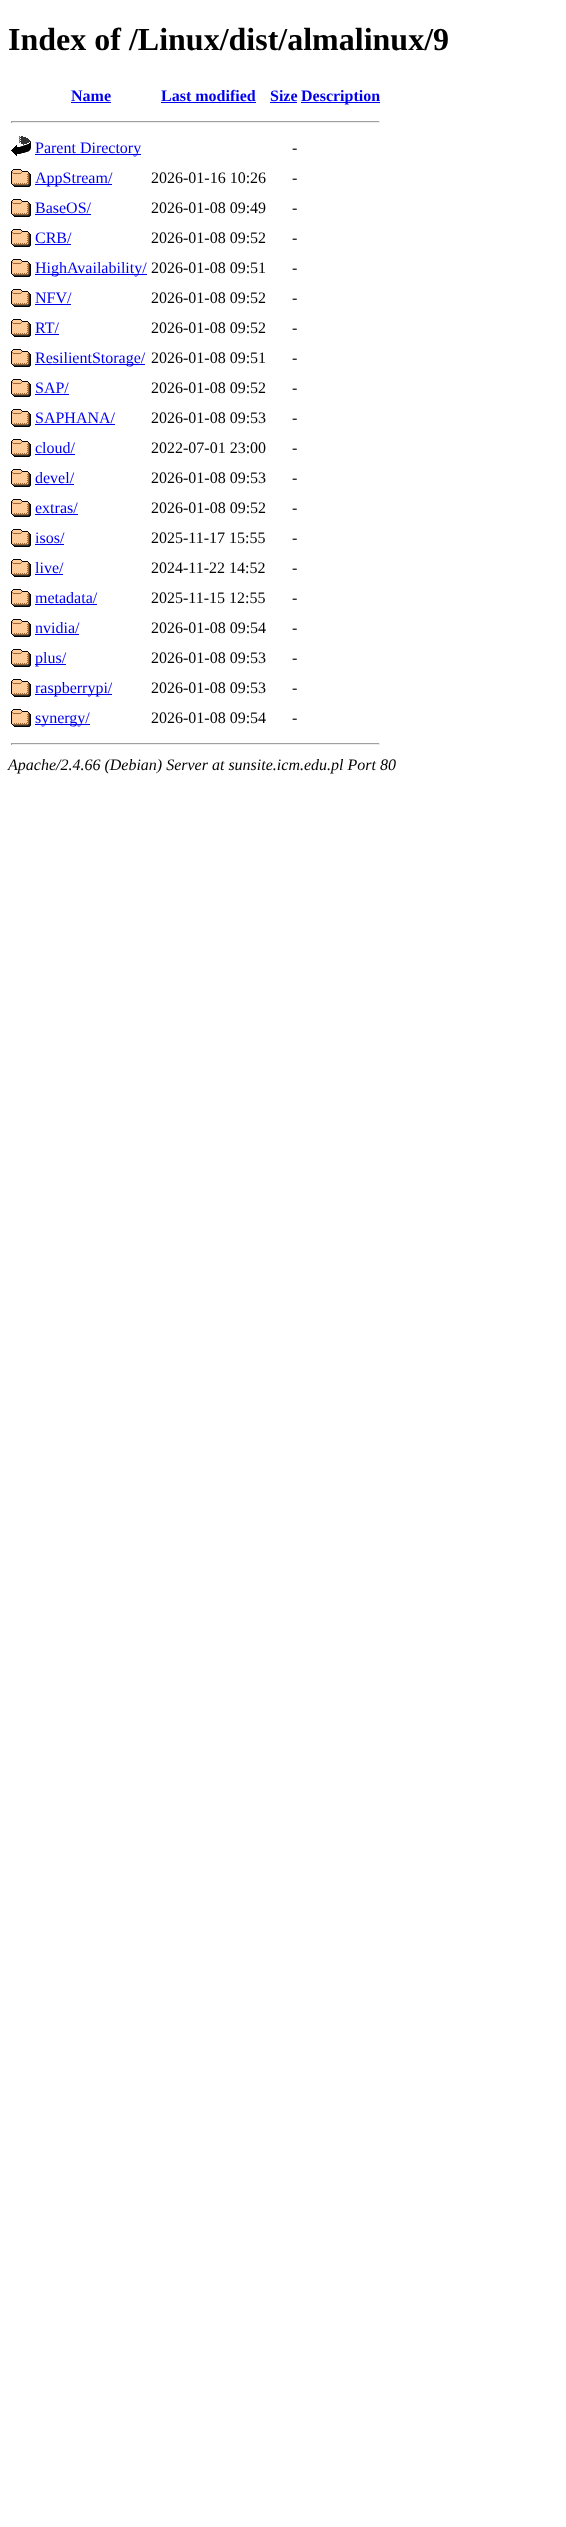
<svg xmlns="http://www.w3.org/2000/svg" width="566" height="2527">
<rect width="100%" height="100%" fill="#fff"/>
<text x="8" y="50" style="font-family:Liberation Serif;font-size:32px;font-weight:bold;fill:#000">Index of /Linux/dist/almalinux/9</text>
<text x="71" y="101" style="font-family:Liberation Serif;font-size:16px;font-weight:bold;fill:#00e">Name</text>
<rect x="71" y="102" width="40" height="1" fill="#00e"/>
<text x="161" y="101" style="font-family:Liberation Serif;font-size:16px;font-weight:bold;fill:#00e">Last modified</text>
<rect x="161" y="102" width="95" height="1" fill="#00e"/>
<text x="270" y="101" style="font-family:Liberation Serif;font-size:16px;font-weight:bold;fill:#00e">Size</text>
<rect x="270" y="102" width="27" height="1" fill="#00e"/>
<rect x="301" y="102" width="79" height="1" fill="#00e"/>
<text x="301" y="101" style="font-family:Liberation Serif;font-size:16px;font-weight:bold;fill:#00e">Description</text>
<rect x="11" y="121" width="369" height="1" fill="#9f9f9f"/>
<rect x="379" y="121" width="1" height="2" fill="#eee"/>
<rect x="11" y="122" width="369" height="1" fill="#eee"/>
<rect x="11" y="121" width="1" height="2" fill="#9f9f9f"/>
<image x="11" y="136" width="20" height="20" href="media/1.png"/>
<rect x="35" y="154" width="106" height="1" fill="#00e"/>
<text x="35" y="153" style="font-family:Liberation Serif;font-size:16px;fill:#00e">Parent Directory</text>
<text x="292" y="153" style="font-family:Liberation Serif;font-size:16px;fill:#000">-</text>
<image x="11" y="169" width="20" height="18" href="media/2.png"/>
<rect x="35" y="184" width="77" height="1" fill="#00e"/>
<text x="35" y="183" style="font-family:Liberation Serif;font-size:16px;fill:#00e">AppStream/</text>
<text x="151" y="183" style="font-family:Liberation Serif;font-size:16px;fill:#000">2026-01-16 10:26</text>
<text x="292" y="183" style="font-family:Liberation Serif;font-size:16px;fill:#000">-</text>
<image x="11" y="199" width="20" height="18" href="media/2.png"/>
<text x="35" y="213" style="font-family:Liberation Serif;font-size:16px;fill:#00e">BaseOS/</text>
<rect x="35" y="214" width="56" height="1" fill="#00e"/>
<text x="151" y="213" style="font-family:Liberation Serif;font-size:16px;fill:#000">2026-01-08 09:49</text>
<text x="292" y="213" style="font-family:Liberation Serif;font-size:16px;fill:#000">-</text>
<image x="11" y="229" width="20" height="18" href="media/2.png"/>
<text x="35" y="243" style="font-family:Liberation Serif;font-size:16px;fill:#00e">CRB/</text>
<rect x="35" y="244" width="36" height="1" fill="#00e"/>
<text x="151" y="243" style="font-family:Liberation Serif;font-size:16px;fill:#000">2026-01-08 09:52</text>
<text x="292" y="243" style="font-family:Liberation Serif;font-size:16px;fill:#000">-</text>
<image x="11" y="259" width="20" height="18" href="media/2.png"/>
<rect x="35" y="274" width="112" height="1" fill="#00e"/>
<text x="35" y="273" style="font-family:Liberation Serif;font-size:16px;fill:#00e">HighAvailability/</text>
<text x="151" y="273" style="font-family:Liberation Serif;font-size:16px;fill:#000">2026-01-08 09:51</text>
<text x="292" y="273" style="font-family:Liberation Serif;font-size:16px;fill:#000">-</text>
<image x="11" y="289" width="20" height="18" href="media/2.png"/>
<text x="35" y="303" style="font-family:Liberation Serif;font-size:16px;fill:#00e">NFV/</text>
<rect x="35" y="304" width="36" height="1" fill="#00e"/>
<text x="151" y="303" style="font-family:Liberation Serif;font-size:16px;fill:#000">2026-01-08 09:52</text>
<text x="292" y="303" style="font-family:Liberation Serif;font-size:16px;fill:#000">-</text>
<image x="11" y="319" width="20" height="18" href="media/2.png"/>
<text x="35" y="333" style="font-family:Liberation Serif;font-size:16px;fill:#00e">RT/</text>
<rect x="35" y="334" width="24" height="1" fill="#00e"/>
<text x="151" y="333" style="font-family:Liberation Serif;font-size:16px;fill:#000">2026-01-08 09:52</text>
<text x="292" y="333" style="font-family:Liberation Serif;font-size:16px;fill:#000">-</text>
<image x="11" y="349" width="20" height="18" href="media/2.png"/>
<rect x="35" y="364" width="110" height="1" fill="#00e"/>
<text x="35" y="363" style="font-family:Liberation Serif;font-size:16px;fill:#00e">ResilientStorage/</text>
<text x="151" y="363" style="font-family:Liberation Serif;font-size:16px;fill:#000">2026-01-08 09:51</text>
<text x="292" y="363" style="font-family:Liberation Serif;font-size:16px;fill:#000">-</text>
<image x="11" y="379" width="20" height="18" href="media/2.png"/>
<text x="35" y="393" style="font-family:Liberation Serif;font-size:16px;fill:#00e">SAP/</text>
<rect x="35" y="394" width="34" height="1" fill="#00e"/>
<text x="151" y="393" style="font-family:Liberation Serif;font-size:16px;fill:#000">2026-01-08 09:52</text>
<text x="292" y="393" style="font-family:Liberation Serif;font-size:16px;fill:#000">-</text>
<image x="11" y="409" width="20" height="18" href="media/2.png"/>
<text x="35" y="423" style="font-family:Liberation Serif;font-size:16px;fill:#00e">SAPHANA/</text>
<rect x="35" y="424" width="80" height="1" fill="#00e"/>
<text x="151" y="423" style="font-family:Liberation Serif;font-size:16px;fill:#000">2026-01-08 09:53</text>
<text x="292" y="423" style="font-family:Liberation Serif;font-size:16px;fill:#000">-</text>
<image x="11" y="439" width="20" height="18" href="media/2.png"/>
<text x="35" y="453" style="font-family:Liberation Serif;font-size:16px;fill:#00e">cloud/</text>
<rect x="35" y="454" width="40" height="1" fill="#00e"/>
<text x="151" y="453" style="font-family:Liberation Serif;font-size:16px;fill:#000">2022-07-01 23:00</text>
<text x="292" y="453" style="font-family:Liberation Serif;font-size:16px;fill:#000">-</text>
<image x="11" y="469" width="20" height="18" href="media/2.png"/>
<text x="35" y="483" style="font-family:Liberation Serif;font-size:16px;fill:#00e">devel/</text>
<rect x="35" y="484" width="39" height="1" fill="#00e"/>
<text x="151" y="483" style="font-family:Liberation Serif;font-size:16px;fill:#000">2026-01-08 09:53</text>
<text x="292" y="483" style="font-family:Liberation Serif;font-size:16px;fill:#000">-</text>
<image x="11" y="499" width="20" height="18" href="media/2.png"/>
<text x="35" y="513" style="font-family:Liberation Serif;font-size:16px;fill:#00e">extras/</text>
<rect x="35" y="514" width="43" height="1" fill="#00e"/>
<text x="151" y="513" style="font-family:Liberation Serif;font-size:16px;fill:#000">2026-01-08 09:52</text>
<text x="292" y="513" style="font-family:Liberation Serif;font-size:16px;fill:#000">-</text>
<image x="11" y="529" width="20" height="18" href="media/2.png"/>
<text x="35" y="543" style="font-family:Liberation Serif;font-size:16px;fill:#00e">isos/</text>
<rect x="35" y="544" width="29" height="1" fill="#00e"/>
<text x="151" y="543" style="font-family:Liberation Serif;font-size:16px;fill:#000">2025-11-17 15:55</text>
<text x="292" y="543" style="font-family:Liberation Serif;font-size:16px;fill:#000">-</text>
<image x="11" y="559" width="20" height="18" href="media/2.png"/>
<text x="35" y="573" style="font-family:Liberation Serif;font-size:16px;fill:#00e">live/</text>
<rect x="35" y="574" width="28" height="1" fill="#00e"/>
<text x="151" y="573" style="font-family:Liberation Serif;font-size:16px;fill:#000">2024-11-22 14:52</text>
<text x="292" y="573" style="font-family:Liberation Serif;font-size:16px;fill:#000">-</text>
<image x="11" y="589" width="20" height="18" href="media/2.png"/>
<text x="35" y="603" style="font-family:Liberation Serif;font-size:16px;fill:#00e">metadata/</text>
<rect x="35" y="604" width="62" height="1" fill="#00e"/>
<text x="151" y="603" style="font-family:Liberation Serif;font-size:16px;fill:#000">2025-11-15 12:55</text>
<text x="292" y="603" style="font-family:Liberation Serif;font-size:16px;fill:#000">-</text>
<image x="11" y="619" width="20" height="18" href="media/2.png"/>
<text x="35" y="633" style="font-family:Liberation Serif;font-size:16px;fill:#00e">nvidia/</text>
<rect x="35" y="634" width="44" height="1" fill="#00e"/>
<text x="151" y="633" style="font-family:Liberation Serif;font-size:16px;fill:#000">2026-01-08 09:54</text>
<text x="292" y="633" style="font-family:Liberation Serif;font-size:16px;fill:#000">-</text>
<image x="11" y="649" width="20" height="18" href="media/2.png"/>
<rect x="35" y="664" width="31" height="1" fill="#00e"/>
<text x="35" y="663" style="font-family:Liberation Serif;font-size:16px;fill:#00e">plus/</text>
<text x="151" y="663" style="font-family:Liberation Serif;font-size:16px;fill:#000">2026-01-08 09:53</text>
<text x="292" y="663" style="font-family:Liberation Serif;font-size:16px;fill:#000">-</text>
<image x="11" y="679" width="20" height="18" href="media/2.png"/>
<rect x="35" y="694" width="77" height="1" fill="#00e"/>
<text x="35" y="693" style="font-family:Liberation Serif;font-size:16px;fill:#00e">raspberrypi/</text>
<text x="151" y="693" style="font-family:Liberation Serif;font-size:16px;fill:#000">2026-01-08 09:53</text>
<text x="292" y="693" style="font-family:Liberation Serif;font-size:16px;fill:#000">-</text>
<image x="11" y="709" width="20" height="18" href="media/2.png"/>
<rect x="35" y="724" width="55" height="1" fill="#00e"/>
<text x="35" y="723" style="font-family:Liberation Serif;font-size:16px;fill:#00e">synergy/</text>
<text x="151" y="723" style="font-family:Liberation Serif;font-size:16px;fill:#000">2026-01-08 09:54</text>
<text x="292" y="723" style="font-family:Liberation Serif;font-size:16px;fill:#000">-</text>
<rect x="11" y="743" width="369" height="1" fill="#9f9f9f"/>
<rect x="379" y="743" width="1" height="2" fill="#eee"/>
<rect x="11" y="744" width="369" height="1" fill="#eee"/>
<rect x="11" y="743" width="1" height="2" fill="#9f9f9f"/>
<text x="8" y="770" style="font-family:Liberation Serif;font-size:16px;font-style:italic;fill:#000">Apache/2.4.66 (Debian) Server at sunsite.icm.edu.pl Port 80</text>
</svg>
